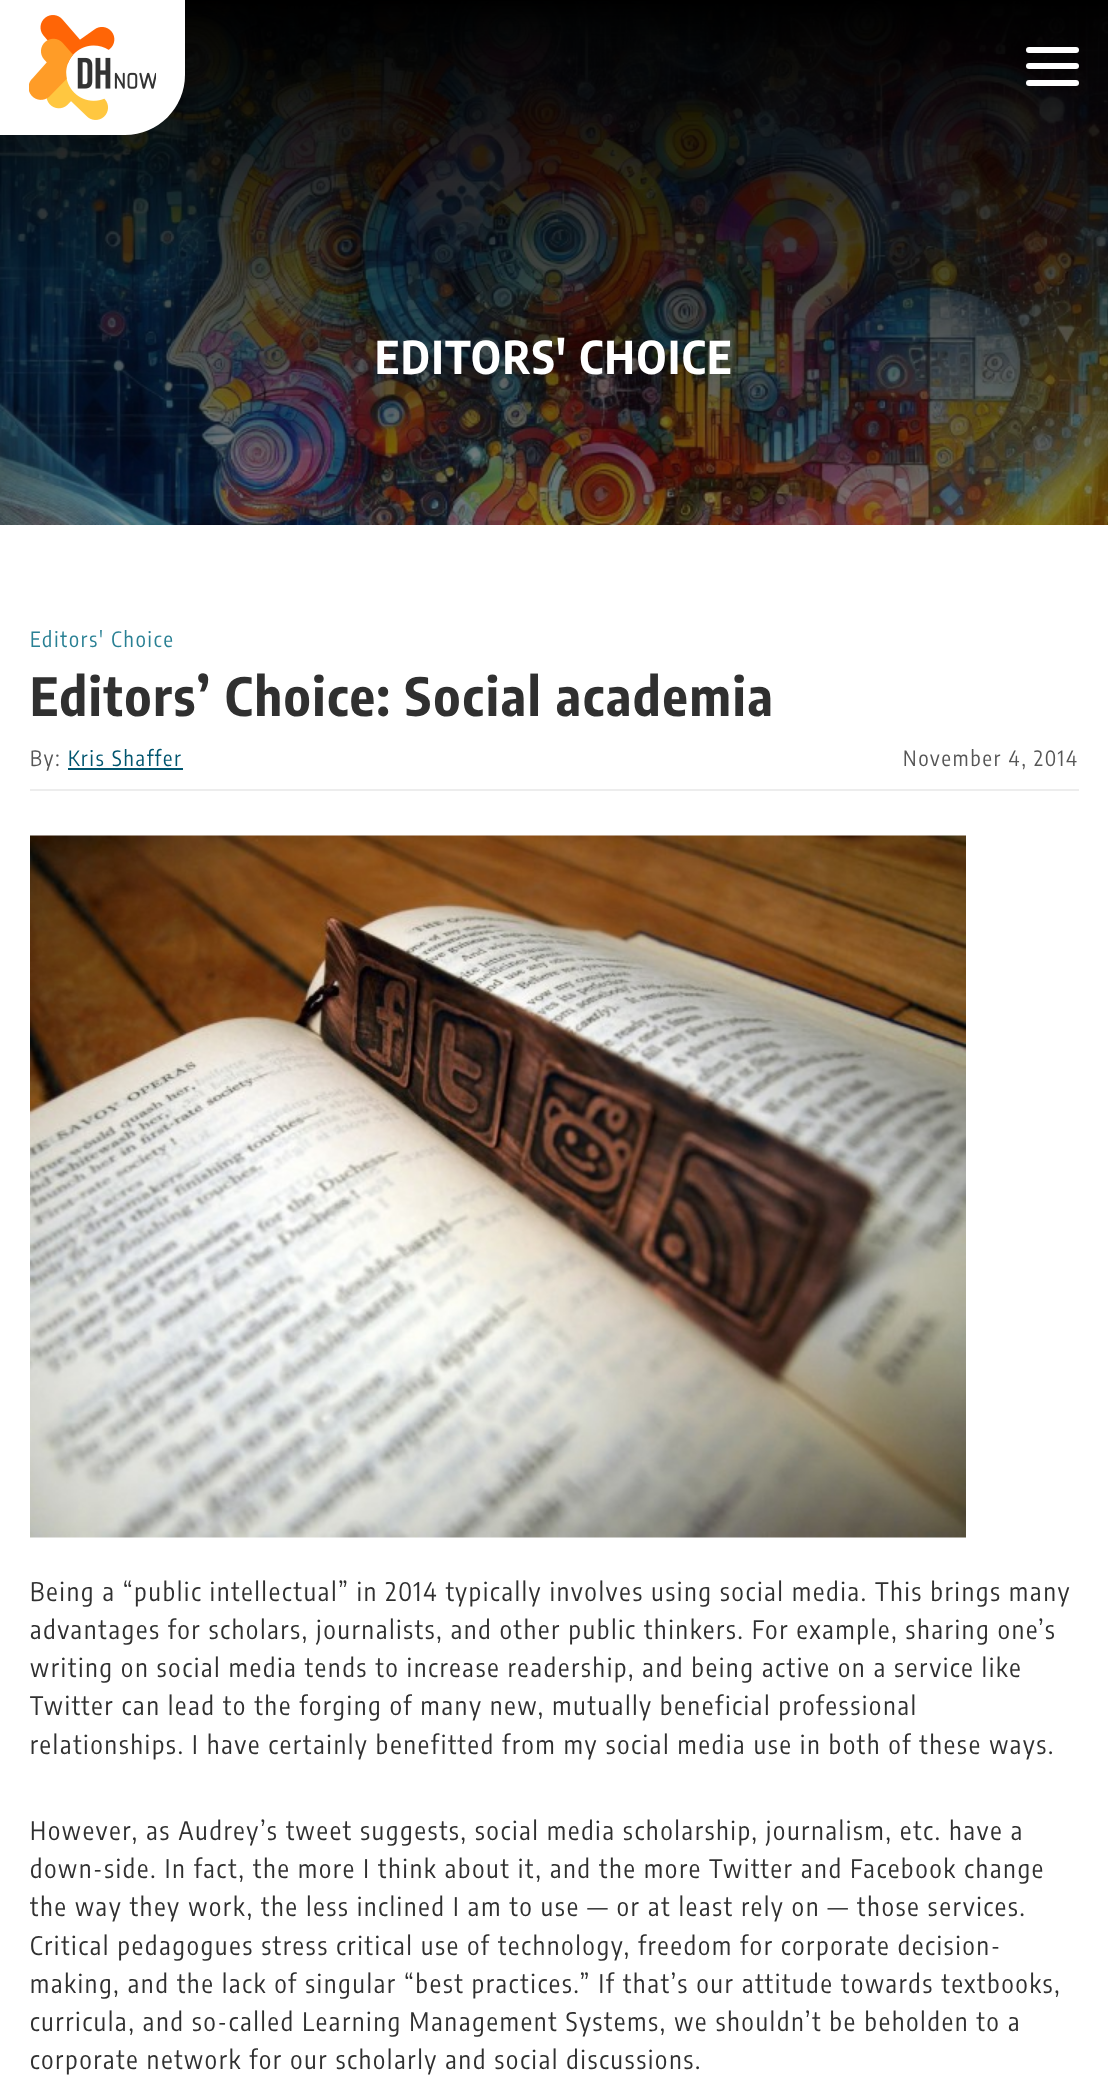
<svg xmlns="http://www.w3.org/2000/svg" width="1108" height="2087">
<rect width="100%" height="100%" fill="#fff"/>
<image x="0" y="0" width="1108" height="525" href="media/2.png"/>
<path d="M0 0h185v75c0 33-27 60-60 60h-125z" fill="#fff"/>
<image x="29" y="15" width="127" height="105" href="media/1.png"/>
<rect x="1026" y="47" width="53" height="6" rx="3" fill="#fff"/>
<rect x="1026" y="63" width="53" height="6" rx="3" fill="#fff"/>
<rect x="1026" y="80" width="53" height="6" rx="3" fill="#fff"/>
<text x="375" y="374" style="font-family:Encode Sans Condensed;font-size:45px;font-weight:bold;letter-spacing:1.92px;fill:#fff">EDITORS' CHOICE</text>
<text x="30" y="647" style="font-family:Encode Sans Condensed;font-size:21px;letter-spacing:1.92px;fill:#298094">Editors' Choice</text>
<text x="30" y="716" style="font-family:Encode Sans Condensed;font-size:52.5px;font-weight:bold;letter-spacing:1.92px;fill:#303030">Editors’ Choice: Social academia</text>
<rect x="30" y="789" width="1049" height="2" fill="#ededed"/>
<text x="30" y="766" style="font-family:Encode Sans Condensed;font-size:21px;letter-spacing:1.92px;fill:#565656">By:</text>
<text x="68" y="766" style="font-family:Encode Sans Condensed;font-size:21px;letter-spacing:1.92px;fill:#00556f">Kris Shaffer</text>
<rect x="68" y="768" width="115" height="2" fill="#00556f"/>
<text x="903" y="766" style="font-family:Encode Sans Condensed;font-size:21px;letter-spacing:1.92px;fill:#565656">November 4, 2014</text>
<image x="30" y="835" width="936" height="703" href="media/3.png"/>
<text x="30" y="1601" style="font-family:Encode Sans Condensed;font-size:25.5px;letter-spacing:1.92px;fill:#303030">Being a “public intellectual” in 2014 typically involves using social media. This brings many</text>
<text x="30" y="1639" style="font-family:Encode Sans Condensed;font-size:25.5px;letter-spacing:1.92px;fill:#303030">advantages for scholars, journalists, and other public thinkers. For example, sharing one’s</text>
<text x="30" y="1677" style="font-family:Encode Sans Condensed;font-size:25.5px;letter-spacing:1.92px;fill:#303030">writing on social media tends to increase readership, and being active on a service like</text>
<text x="30" y="1715" style="font-family:Encode Sans Condensed;font-size:25.5px;letter-spacing:1.92px;fill:#303030">Twitter can lead to the forging of many new, mutually beneficial professional</text>
<text x="30" y="1754" style="font-family:Encode Sans Condensed;font-size:25.5px;letter-spacing:1.92px;fill:#303030">relationships. I have certainly benefitted from my social media use in both of these ways.</text>
<text x="30" y="1840" style="font-family:Encode Sans Condensed;font-size:25.5px;letter-spacing:1.92px;fill:#303030">However, as Audrey’s tweet suggests, social media scholarship, journalism, etc. have a</text>
<text x="30" y="1878" style="font-family:Encode Sans Condensed;font-size:25.5px;letter-spacing:1.92px;fill:#303030">down-side. In fact, the more I think about it, and the more Twitter and Facebook change</text>
<text x="30" y="1916" style="font-family:Encode Sans Condensed;font-size:25.5px;letter-spacing:1.92px;fill:#303030">the way they work, the less inclined I am to use — or at least rely on — those services.</text>
<text x="30" y="1955" style="font-family:Encode Sans Condensed;font-size:25.5px;letter-spacing:1.92px;fill:#303030">Critical pedagogues stress critical use of technology, freedom for corporate decision-</text>
<text x="30" y="1993" style="font-family:Encode Sans Condensed;font-size:25.5px;letter-spacing:1.92px;fill:#303030">making, and the lack of singular “best practices.” If that’s our attitude towards textbooks,</text>
<text x="30" y="2031" style="font-family:Encode Sans Condensed;font-size:25.5px;letter-spacing:1.92px;fill:#303030">curricula, and so-called Learning Management Systems, we shouldn’t be beholden to a</text>
<text x="30" y="2069" style="font-family:Encode Sans Condensed;font-size:25.5px;letter-spacing:1.92px;fill:#303030">corporate network for our scholarly and social discussions.</text>
</svg>
